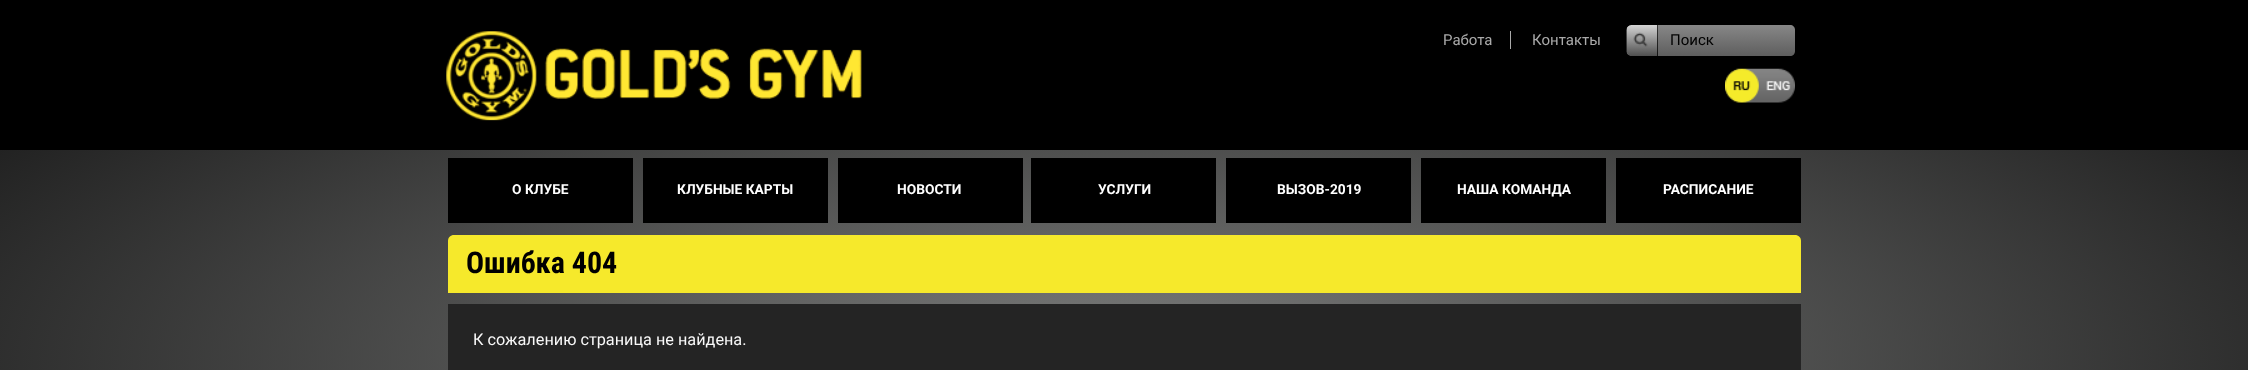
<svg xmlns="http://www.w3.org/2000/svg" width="2248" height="370">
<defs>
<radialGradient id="g1" gradientUnits="userSpaceOnUse" cx="0" cy="0" r="1" gradientTransform="matrix(1590 0 0 514 1124 363)"><stop offset="0" stop-color="#7d7e7d"/><stop offset="1" stop-color="#0e0e0e"/></radialGradient>
<linearGradient id="g2" gradientUnits="userSpaceOnUse" x1="1726" y1="25" x2="1726" y2="56"><stop offset="0" stop-color="#878787"/><stop offset="1" stop-color="#5e5e5e"/></linearGradient>
</defs>
<rect width="100%" height="100%" fill="#fff"/>
<rect y="150" width="2248" height="220" fill="url(#g1)"/>
<rect width="2248" height="150" fill="#000"/>
<image x="446" y="31" width="416" height="90" href="media/1.png"/>
<text x="1443" y="45" style="font-family:Roboto;font-size:15px;fill:#aaa">Работа</text>
<rect x="1510" y="31" width="1" height="18" fill="#aaa"/>
<text x="1532" y="45" style="font-family:Roboto;font-size:15px;fill:#aaa">Контакты</text>
<image x="1626" y="25" width="32" height="31" href="media/2.png"/>
<path d="M1658 25h132c3 0 5 2 5 5v21c0 3-2 5-5 5h-132z" fill="url(#g2)"/>
<text x="1670" y="45" style="font-family:Roboto;font-size:15px;fill:#000">Поиск</text>
<image x="1725" y="68" width="70" height="35" href="media/3.png"/>
<rect x="448" y="158" width="185" height="65" fill="#000"/>
<text x="512" y="194" style="font-family:Roboto;font-size:13.75px;font-weight:bold;fill:#fff">О КЛУБЕ</text>
<rect x="643" y="158" width="185" height="65" fill="#000"/>
<text x="677" y="194" style="font-family:Roboto;font-size:13.75px;font-weight:bold;fill:#fff">КЛУБНЫЕ КАРТЫ</text>
<rect x="838" y="158" width="185" height="65" fill="#000"/>
<text x="897" y="194" style="font-family:Roboto;font-size:13.75px;font-weight:bold;fill:#fff">НОВОСТИ</text>
<rect x="1031" y="158" width="185" height="65" fill="#000"/>
<text x="1098" y="194" style="font-family:Roboto;font-size:13.75px;font-weight:bold;fill:#fff">УСЛУГИ</text>
<rect x="1226" y="158" width="185" height="65" fill="#000"/>
<text x="1277" y="194" style="font-family:Roboto;font-size:13.75px;font-weight:bold;fill:#fff">ВЫЗОВ-2019</text>
<rect x="1421" y="158" width="185" height="65" fill="#000"/>
<text x="1457" y="194" style="font-family:Roboto;font-size:13.75px;font-weight:bold;fill:#fff">НАША КОМАНДА</text>
<rect x="1616" y="158" width="185" height="65" fill="#000"/>
<text x="1663" y="194" style="font-family:Roboto;font-size:13.75px;font-weight:bold;fill:#fff">РАСПИСАНИЕ</text>
<path d="M454 235h1341c3.5 0 6 2.5 6 6v52h-1353v-52c0-3.5 2.5-6 6-6z" fill="#f6e92b"/>
<text x="466" y="273" style="font-family:Roboto Condensed;font-size:30px;font-weight:bold;fill:#000">Ошибка 404</text>
<rect x="448" y="304" width="1353" height="66" fill="#242424"/>
<text x="473" y="345" style="font-family:Roboto;font-size:16.25px;fill:#f9f9f9">К сожалению страница не найдена.</text>
</svg>
